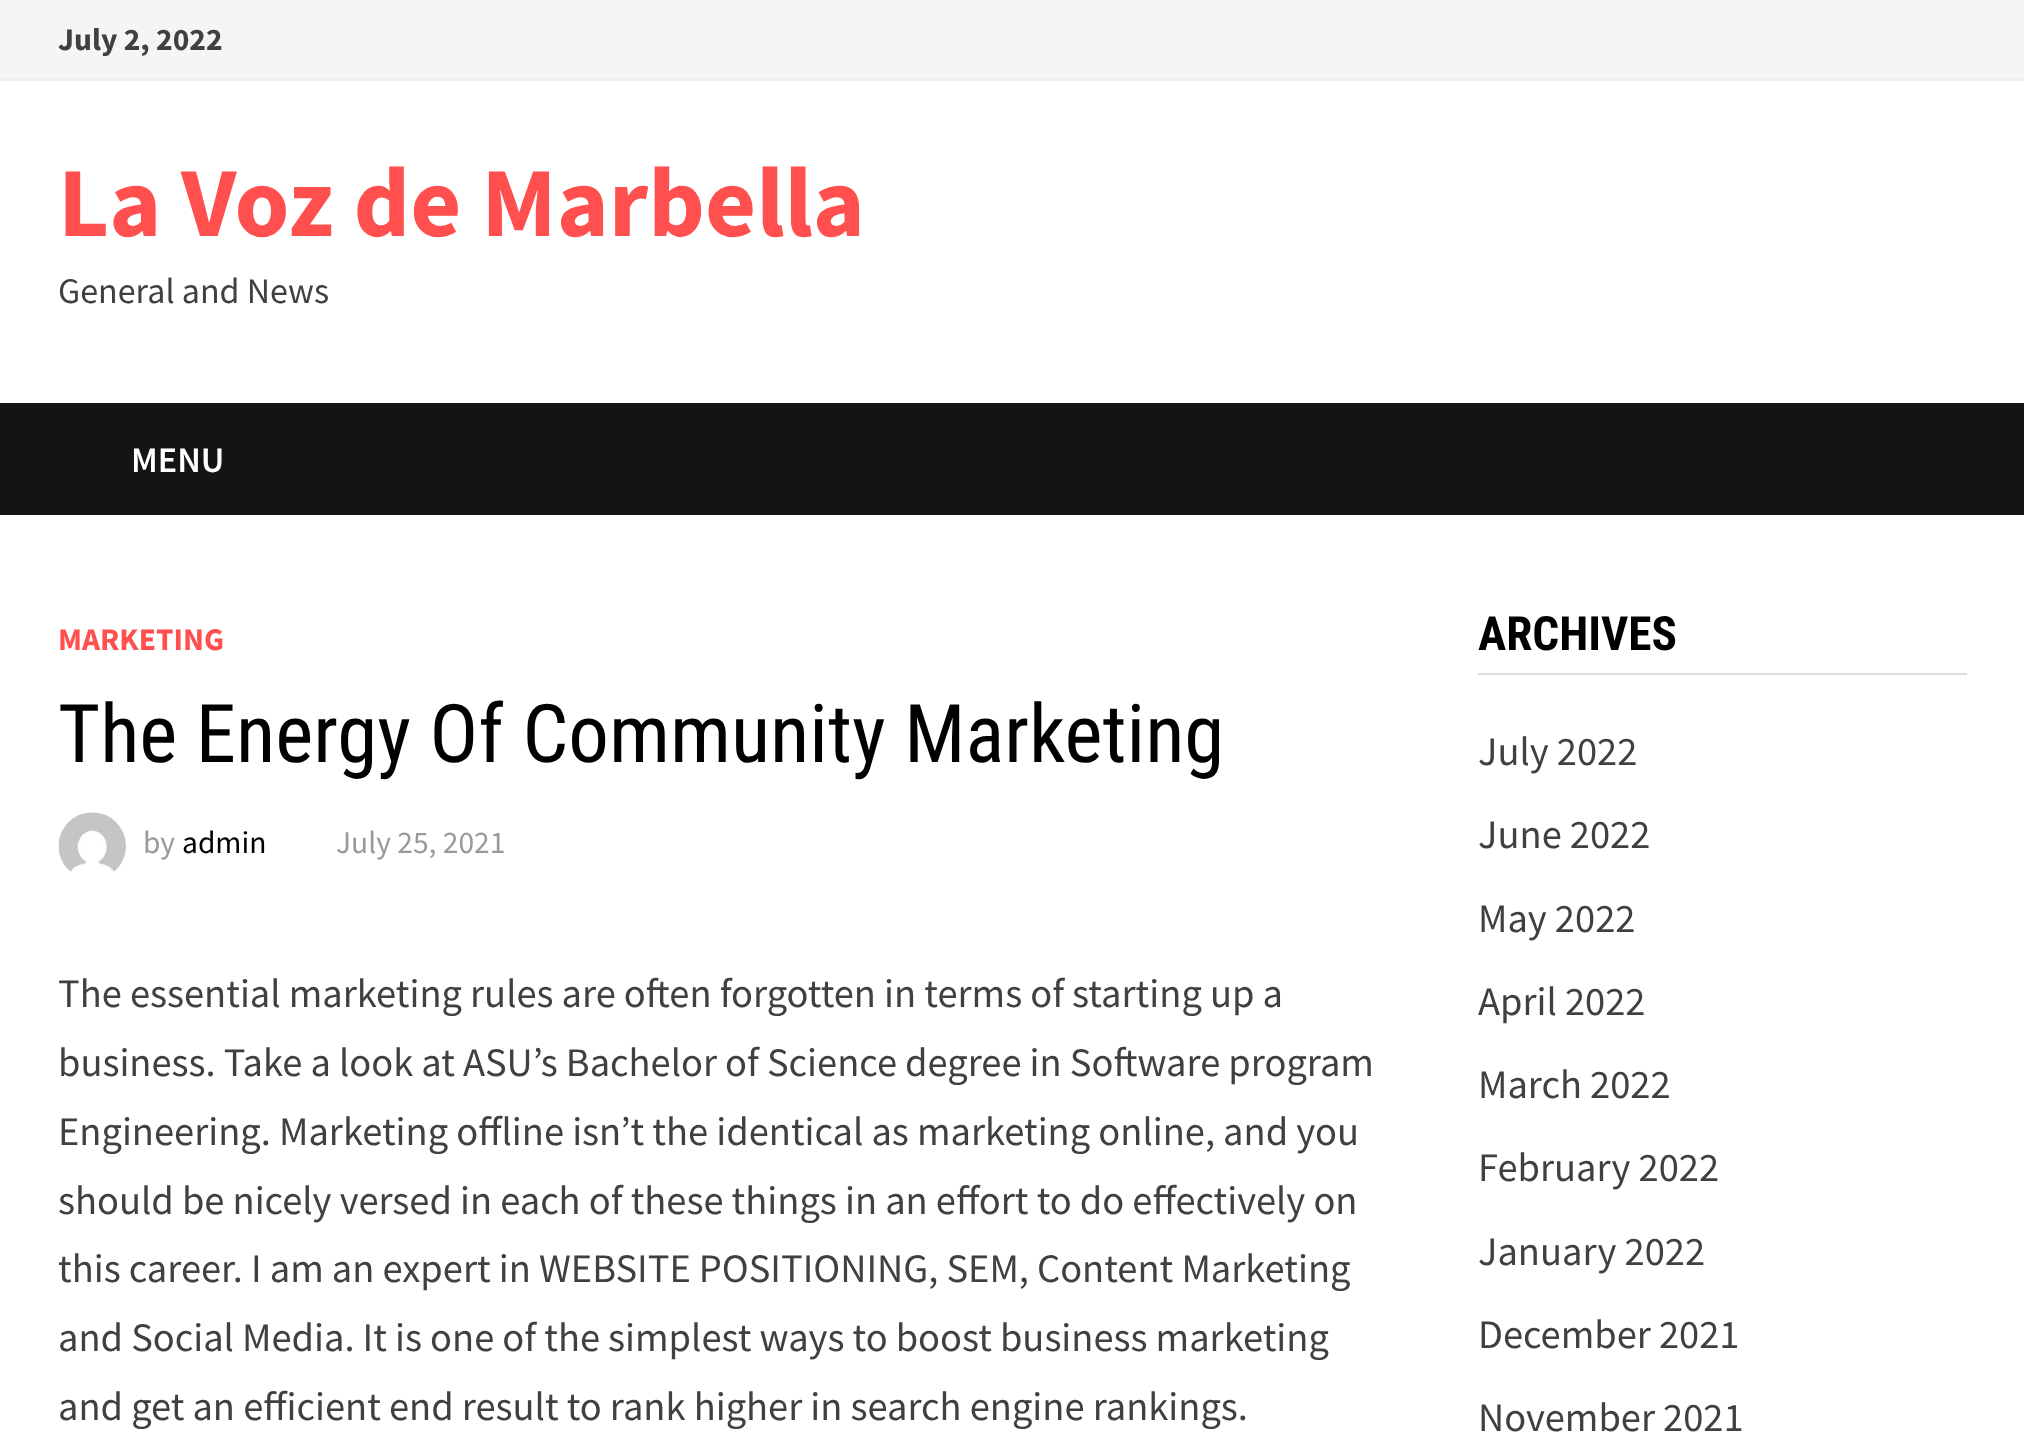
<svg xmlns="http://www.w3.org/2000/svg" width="2024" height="1439">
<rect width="100%" height="100%" fill="#fff"/>
<rect width="2024" height="79" fill="#f5f5f5"/>
<rect y="79" width="2024" height="2" fill="#eee"/>
<text x="58" y="50" style="font-family:Source Sans Pro;font-size:31.5px;font-weight:bold;fill:#404040">July 2, 2022</text>
<text x="58" y="236" style="font-family:Source Sans Pro;font-size:99px;font-weight:bold;fill:#ff4f4f">La Voz de Marbella</text>
<text x="58" y="303" style="font-family:Source Sans Pro;font-size:36px;fill:#404040">General and News</text>
<rect y="403" width="2024" height="112" fill="#141414"/>
<text x="131" y="472" style="font-family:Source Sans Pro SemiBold;font-size:36px;font-weight:600;fill:#fff">MENU</text>
<text x="58" y="650" style="font-family:Source Sans Pro;font-size:31.5px;font-weight:bold;fill:#ff4f4f">MARKETING</text>
<text x="58" y="762" style="font-family:Roboto Condensed;font-size:81px;fill:#000">The Energy Of Community Marketing</text>
<image x="58" y="812" width="68" height="60" href="media/1.png"/>
<text x="143" y="853" style="font-family:Source Sans Pro;font-size:31.5px;fill:#999">by</text>
<text x="182" y="853" style="font-family:Source Sans Pro;font-size:31.5px;fill:#000">admin</text>
<text x="336" y="853" style="font-family:Source Sans Pro;font-size:31.5px;fill:#999">July 25, 2021</text>
<text x="58" y="1007" style="font-family:Source Sans Pro;font-size:40.5px;fill:#404040">The essential marketing rules are often forgotten in terms of starting up a</text>
<text x="58" y="1076" style="font-family:Source Sans Pro;font-size:40.5px;fill:#404040">business. Take a look at ASU’s Bachelor of Science degree in Software program</text>
<text x="58" y="1145" style="font-family:Source Sans Pro;font-size:40.5px;fill:#404040">Engineering. Marketing offline isn’t the identical as marketing online, and you</text>
<text x="58" y="1214" style="font-family:Source Sans Pro;font-size:40.5px;fill:#404040">should be nicely versed in each of these things in an effort to do effectively on</text>
<text x="58" y="1282" style="font-family:Source Sans Pro;font-size:40.5px;fill:#404040">this career. I am an expert in WEBSITE POSITIONING, SEM, Content Marketing</text>
<text x="58" y="1351" style="font-family:Source Sans Pro;font-size:40.5px;fill:#404040">and Social Media. It is one of the simplest ways to boost business marketing</text>
<text x="58" y="1420" style="font-family:Source Sans Pro;font-size:40.5px;fill:#404040">and get an efficient end result to rank higher in search engine rankings.</text>
<rect x="1478" y="673" width="489" height="2" fill="#ddd"/>
<text x="1478" y="650" style="font-family:Roboto Condensed;font-size:47.25px;font-weight:bold;fill:#000">ARCHIVES</text>
<text x="1478" y="765" style="font-family:Source Sans Pro;font-size:40.5px;fill:#404040">July 2022</text>
<text x="1478" y="848" style="font-family:Source Sans Pro;font-size:40.5px;fill:#404040">June 2022</text>
<text x="1478" y="932" style="font-family:Source Sans Pro;font-size:40.5px;fill:#404040">May 2022</text>
<text x="1478" y="1015" style="font-family:Source Sans Pro;font-size:40.5px;fill:#404040">April 2022</text>
<text x="1478" y="1098" style="font-family:Source Sans Pro;font-size:40.5px;fill:#404040">March 2022</text>
<text x="1478" y="1181" style="font-family:Source Sans Pro;font-size:40.5px;fill:#404040">February 2022</text>
<text x="1478" y="1265" style="font-family:Source Sans Pro;font-size:40.5px;fill:#404040">January 2022</text>
<text x="1478" y="1348" style="font-family:Source Sans Pro;font-size:40.5px;fill:#404040">December 2021</text>
<text x="1478" y="1431" style="font-family:Source Sans Pro;font-size:40.5px;fill:#404040">November 2021</text>
</svg>
